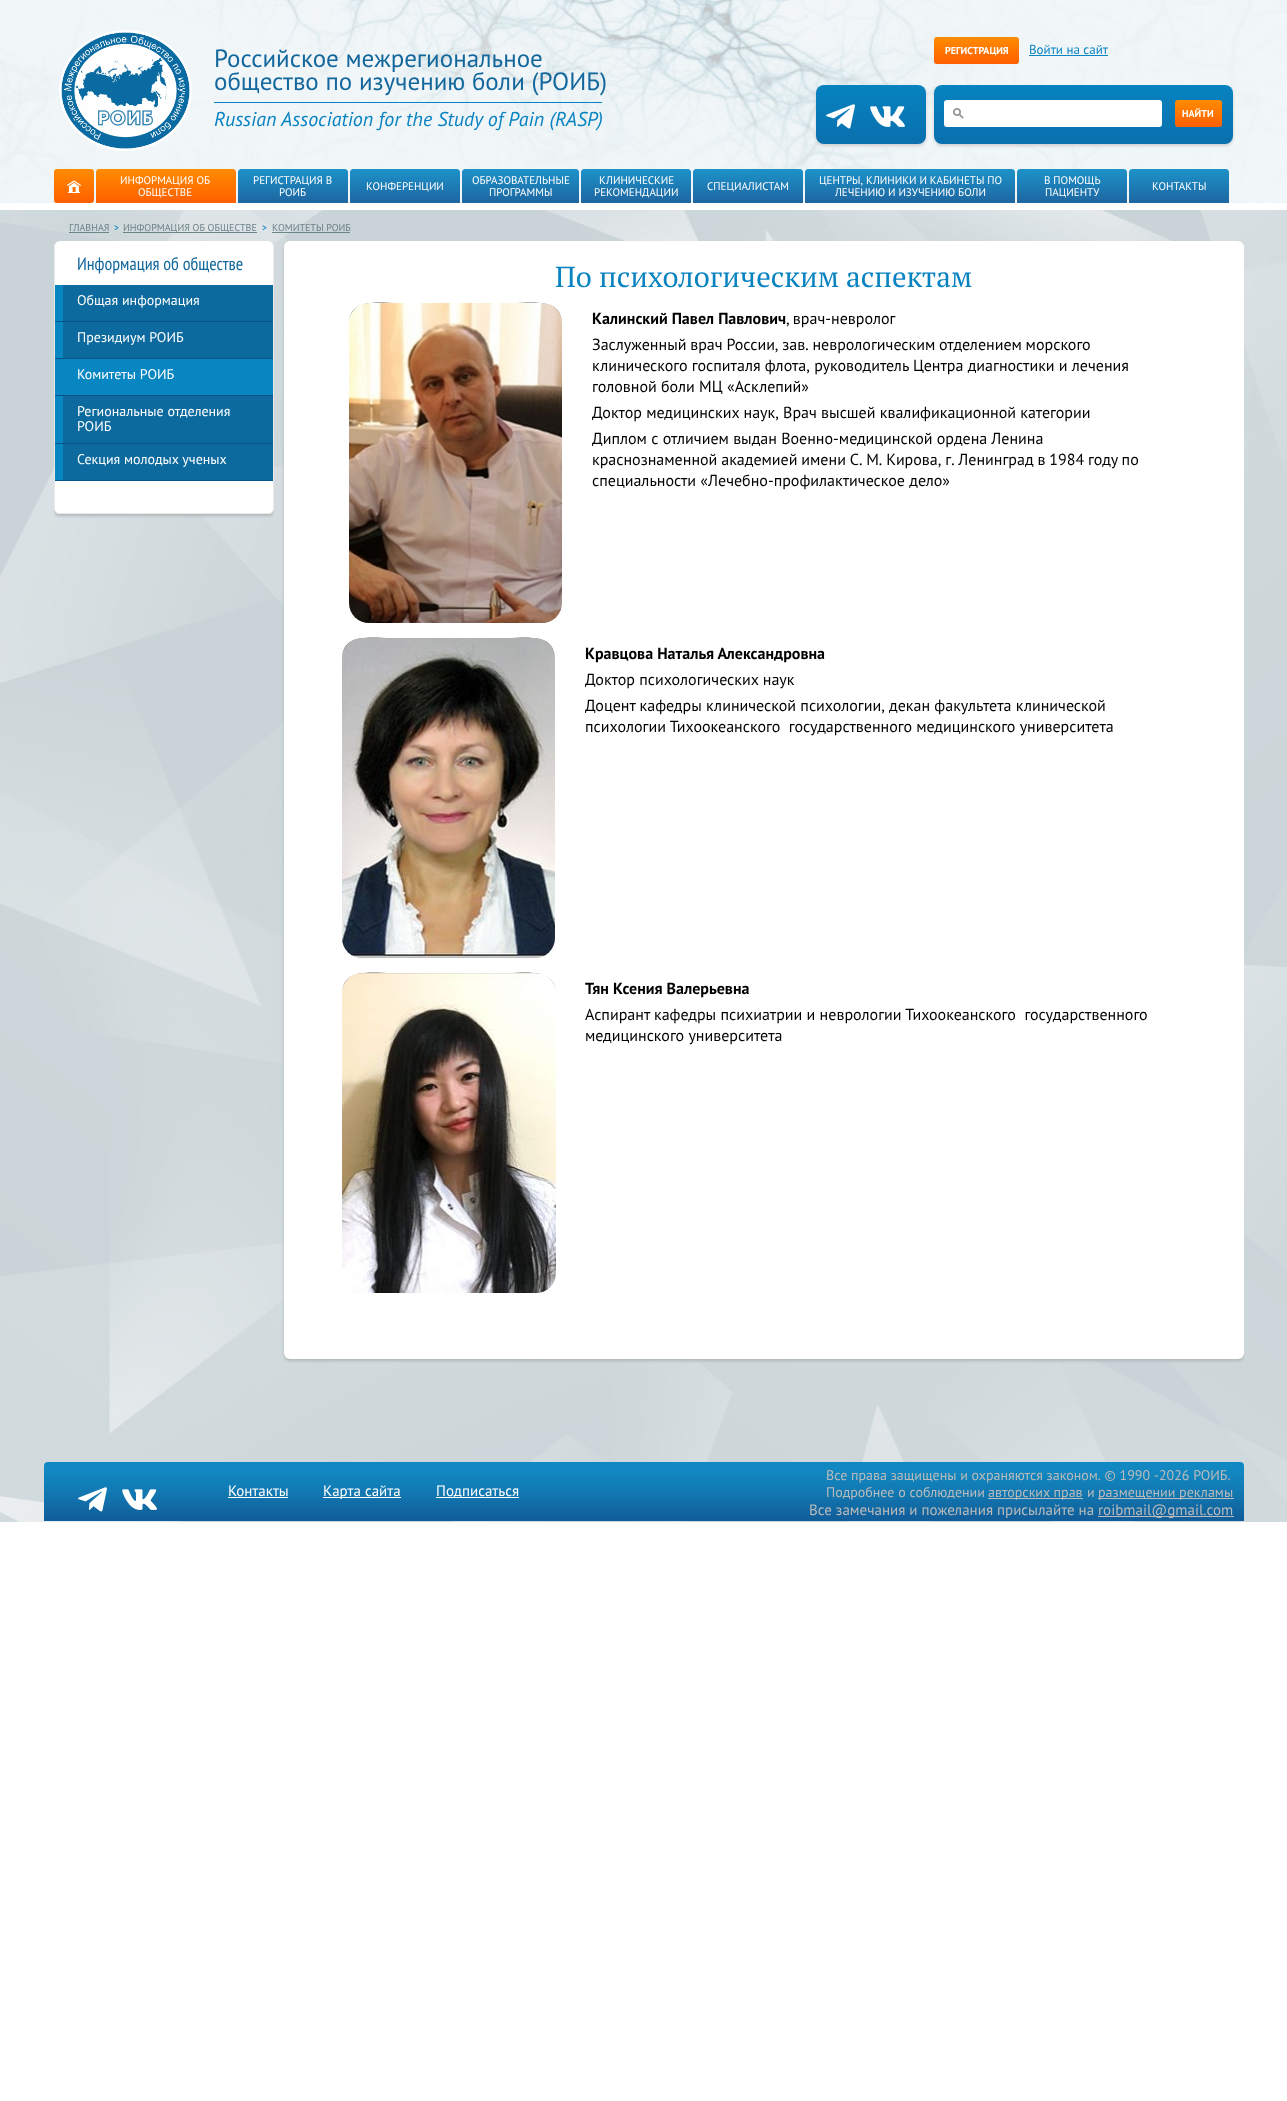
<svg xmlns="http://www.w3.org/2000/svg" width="1287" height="2101">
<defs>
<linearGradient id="g1" gradientUnits="userSpaceOnUse" x1="871" y1="85" x2="871" y2="144"><stop offset="0" stop-color="#0783c0"/><stop offset="1" stop-color="#0a6fad"/></linearGradient>
<linearGradient id="g2" gradientUnits="userSpaceOnUse" x1="977" y1="37" x2="977" y2="64"><stop offset="0" stop-color="#ff8c00"/><stop offset="1" stop-color="#ff5f00"/></linearGradient>
<linearGradient id="g3" gradientUnits="userSpaceOnUse" x1="1084" y1="85" x2="1084" y2="144"><stop offset="0" stop-color="#0783c0"/><stop offset="1" stop-color="#0a6fad"/></linearGradient>
<linearGradient id="g4" gradientUnits="userSpaceOnUse" x1="1199" y1="100" x2="1199" y2="127"><stop offset="0" stop-color="#ff8c00"/><stop offset="1" stop-color="#ff5f00"/></linearGradient>
<linearGradient id="g5" gradientUnits="userSpaceOnUse" x1="74" y1="169" x2="74" y2="203"><stop offset="0" stop-color="#ff8c00"/><stop offset="1" stop-color="#ff5f00"/></linearGradient>
<linearGradient id="g6" gradientUnits="userSpaceOnUse" x1="166" y1="169" x2="166" y2="203"><stop offset="0" stop-color="#ff8c00"/><stop offset="1" stop-color="#ff5f00"/></linearGradient>
<linearGradient id="g7" gradientUnits="userSpaceOnUse" x1="293" y1="169" x2="293" y2="203"><stop offset="0" stop-color="#1d92c9"/><stop offset="1" stop-color="#1e66a1"/></linearGradient>
<linearGradient id="g8" gradientUnits="userSpaceOnUse" x1="405" y1="169" x2="405" y2="203"><stop offset="0" stop-color="#1d92c9"/><stop offset="1" stop-color="#1e66a1"/></linearGradient>
<linearGradient id="g9" gradientUnits="userSpaceOnUse" x1="521" y1="169" x2="521" y2="203"><stop offset="0" stop-color="#1d92c9"/><stop offset="1" stop-color="#1e66a1"/></linearGradient>
<linearGradient id="g10" gradientUnits="userSpaceOnUse" x1="636" y1="169" x2="636" y2="203"><stop offset="0" stop-color="#1d92c9"/><stop offset="1" stop-color="#1e66a1"/></linearGradient>
<linearGradient id="g11" gradientUnits="userSpaceOnUse" x1="748" y1="169" x2="748" y2="203"><stop offset="0" stop-color="#1d92c9"/><stop offset="1" stop-color="#1e66a1"/></linearGradient>
<linearGradient id="g12" gradientUnits="userSpaceOnUse" x1="910" y1="169" x2="910" y2="203"><stop offset="0" stop-color="#1d92c9"/><stop offset="1" stop-color="#1e66a1"/></linearGradient>
<linearGradient id="g13" gradientUnits="userSpaceOnUse" x1="1072" y1="169" x2="1072" y2="203"><stop offset="0" stop-color="#1d92c9"/><stop offset="1" stop-color="#1e66a1"/></linearGradient>
<linearGradient id="g14" gradientUnits="userSpaceOnUse" x1="1179" y1="169" x2="1179" y2="203"><stop offset="0" stop-color="#1d92c9"/><stop offset="1" stop-color="#1e66a1"/></linearGradient>
<clipPath id="clip1"><rect x="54" y="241" width="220" height="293"/></clipPath>
<clipPath id="clip2"><rect x="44" y="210" width="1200" height="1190"/></clipPath>
</defs>
<rect width="100%" height="100%" fill="#fff"/>
<image x="0" y="210" width="1287" height="1312" href="media/1.png"/>
<image x="0" y="0" width="1287" height="203" href="media/2.png"/>
<image x="59" y="30" width="133" height="121" href="media/3.png"/>
<text x="214" y="67" style="font-family:PT Sans;font-size:25px;fill:#12679d">Российское межрегиональное</text>
<text x="214" y="90" style="font-family:PT Sans;font-size:25px;fill:#12679d">общество по изучению боли (РОИБ)</text>
<rect x="214" y="102" width="388" height="1" fill="#0883c1"/>
<text x="214" y="126" style="font-family:PT Sans;font-size:20px;font-style:italic;fill:#0883c1">Russian Association for the Study of Pain (RASP)</text>
<rect x="816" y="87" width="110" height="59" rx="8" fill="#d0d0d0" filter="blur(1.5px)"/>
<rect x="816" y="85" width="110" height="59" rx="8" fill="url(#g1)"/>
<image x="826" y="104" width="29" height="25" href="media/4.png"/>
<image x="870" y="106" width="35" height="21" href="media/5.png"/>
<rect x="934" y="37" width="85" height="27" rx="3" fill="url(#g2)"/>
<text x="945" y="54" style="font-family:PT Sans;font-size:10px;font-weight:bold;fill:#fff">РЕГИСТРАЦИЯ</text>
<text x="1029" y="54" style="font-family:PT Sans;font-size:13px;fill:#0883c1">Войти на сайт</text>
<rect x="1029" y="55" width="79" height="1" fill="#0886c2"/>
<rect x="934" y="87" width="299" height="59" rx="8" fill="#d0d0d0" filter="blur(1.5px)"/>
<rect x="934" y="85" width="299" height="59" rx="8" fill="url(#g3)"/>
<rect x="944" y="100" width="218" height="27" rx="3" fill="#fff"/>
<image x="953" y="108" width="11" height="11" href="media/6.png"/>
<rect x="1175" y="100" width="47" height="27" rx="3" fill="url(#g4)"/>
<text x="1182" y="117" style="font-family:PT Sans;font-size:10px;font-weight:bold;fill:#fff">НАЙТИ</text>
<rect x="54" y="169" width="40" height="34" rx="3" fill="url(#g5)"/>
<image x="67" y="180" width="14" height="13" href="media/7.png"/>
<path d="M99 169h134c1.5 0 3 1.5 3 3v31h-140v-31c0-1.5 1.5-3 3-3z" fill="url(#g6)"/>
<text x="120" y="184" style="font-family:PT Sans;font-size:11px;fill:#fff">ИНФОРМАЦИЯ ОБ</text>
<text x="138" y="196" style="font-family:PT Sans;font-size:11px;fill:#fff">ОБЩЕСТВЕ</text>
<path d="M241 169h104c1.5 0 3 1.5 3 3v31h-110v-31c0-1.5 1.5-3 3-3z" fill="url(#g7)"/>
<text x="253" y="184" style="font-family:PT Sans;font-size:11px;fill:#fff">РЕГИСТРАЦИЯ В</text>
<text x="279" y="196" style="font-family:PT Sans;font-size:11px;fill:#fff">РОИБ</text>
<path d="M353 169h104c1.5 0 3 1.5 3 3v31h-110v-31c0-1.5 1.5-3 3-3z" fill="url(#g8)"/>
<text x="366" y="190" style="font-family:PT Sans;font-size:11px;fill:#fff">КОНФЕРЕНЦИИ</text>
<path d="M465 169h111c1.5 0 3 1.5 3 3v31h-117v-31c0-1.5 1.5-3 3-3z" fill="url(#g9)"/>
<text x="472" y="184" style="font-family:PT Sans;font-size:11px;fill:#fff">ОБРАЗОВАТЕЛЬНЫЕ</text>
<text x="489" y="196" style="font-family:PT Sans;font-size:11px;fill:#fff">ПРОГРАММЫ</text>
<path d="M584 169h104c1.5 0 3 1.5 3 3v31h-110v-31c0-1.5 1.5-3 3-3z" fill="url(#g10)"/>
<text x="599" y="184" style="font-family:PT Sans;font-size:11px;fill:#fff">КЛИНИЧЕСКИЕ</text>
<text x="594" y="196" style="font-family:PT Sans;font-size:11px;fill:#fff">РЕКОМЕНДАЦИИ</text>
<path d="M696 169h104c1.5 0 3 1.5 3 3v31h-110v-31c0-1.5 1.5-3 3-3z" fill="url(#g11)"/>
<text x="707" y="190" style="font-family:PT Sans;font-size:11px;fill:#fff">СПЕЦИАЛИСТАМ</text>
<path d="M808 169h204c1.5 0 3 1.5 3 3v31h-210v-31c0-1.5 1.5-3 3-3z" fill="url(#g12)"/>
<text x="819" y="184" style="font-family:PT Sans;font-size:11px;fill:#fff">ЦЕНТРЫ, КЛИНИКИ И КАБИНЕТЫ ПО</text>
<text x="835" y="196" style="font-family:PT Sans;font-size:11px;fill:#fff">ЛЕЧЕНИЮ И ИЗУЧЕНИЮ БОЛИ</text>
<path d="M1020 169h104c1.5 0 3 1.5 3 3v31h-110v-31c0-1.5 1.5-3 3-3z" fill="url(#g13)"/>
<text x="1044" y="184" style="font-family:PT Sans;font-size:11px;fill:#fff">В ПОМОЩЬ</text>
<text x="1045" y="196" style="font-family:PT Sans;font-size:11px;fill:#fff">ПАЦИЕНТУ</text>
<path d="M1132 169h94c1.5 0 3 1.5 3 3v31h-100v-31c0-1.5 1.5-3 3-3z" fill="url(#g14)"/>
<text x="1152" y="190" style="font-family:PT Sans;font-size:11px;fill:#fff">КОНТАКТЫ</text>
<text x="69" y="231" style="font-family:PT Sans;font-size:10px;fill:#6c838a">ГЛАВНАЯ</text>
<rect x="69" y="232" width="40" height="1" fill="#6c838a"/>
<text x="114" y="231" style="font-family:PT Sans;font-size:10px;fill:#0883c1">&gt;</text>
<rect x="123" y="232" width="134" height="1" fill="#6c838a"/>
<text x="123" y="231" style="font-family:PT Sans;font-size:10px;fill:#6c838a">ИНФОРМАЦИЯ ОБ ОБЩЕСТВЕ</text>
<text x="262" y="231" style="font-family:PT Sans;font-size:10px;fill:#0883c1">&gt;</text>
<text x="272" y="231" style="font-family:PT Sans;font-size:10px;fill:#6c838a">КОМИТЕТЫ РОИБ</text>
<rect x="272" y="232" width="78" height="1" fill="#6c838a"/>
<g clip-path="url(#clip1)">
<rect x="54" y="243" width="220" height="273" rx="6" fill="#afb7ba" filter="blur(1.5px)"/>
</g>
<rect x="54" y="241" width="220" height="273" rx="6" fill="#fff"/>
<path d="M60 241h208c3 0 6 3 6 6v261c0 3-3 6-6 6h-208c-3 0-6-3-6-6v-261c0-3 3-6 6-6zm0 0h208c3 0 5 3 5 6v261c0 3-2 5-5 5h-208c-3 0-5-2-5-5v-261c0-3 2-6 5-6z" fill="#e9e9e9" fill-rule="evenodd"/>
<text x="77" y="270" style="font-family:PT Sans Narrow;font-size:18px;fill:#12679d">Информация об обществе</text>
<rect x="55" y="321" width="218" height="1" fill="#095389"/>
<rect x="63" y="285" width="210" height="36" fill="#0d6a9e"/>
<rect x="55" y="285" width="8" height="36" fill="#0886c2"/>
<text x="77" y="305" style="font-family:PT Sans;font-size:14px;fill:#fff">Общая информация</text>
<rect x="55" y="358" width="218" height="1" fill="#095389"/>
<rect x="63" y="322" width="210" height="36" fill="#0d6a9e"/>
<rect x="55" y="322" width="8" height="36" fill="#0886c2"/>
<text x="77" y="342" style="font-family:PT Sans;font-size:14px;fill:#fff">Президиум РОИБ</text>
<rect x="55" y="395" width="218" height="1" fill="#095389"/>
<rect x="55" y="359" width="218" height="36" fill="#0886c2"/>
<text x="77" y="379" style="font-family:PT Sans;font-size:14px;fill:#fff">Комитеты РОИБ</text>
<rect x="55" y="443" width="218" height="1" fill="#095389"/>
<rect x="63" y="396" width="210" height="47" fill="#0d6a9e"/>
<rect x="55" y="396" width="8" height="47" fill="#0886c2"/>
<text x="77" y="416" style="font-family:PT Sans;font-size:14px;fill:#fff">Региональные отделения</text>
<text x="77" y="431" style="font-family:PT Sans;font-size:14px;fill:#fff">РОИБ</text>
<rect x="55" y="480" width="218" height="1" fill="#095389"/>
<rect x="63" y="444" width="210" height="36" fill="#0d6a9e"/>
<rect x="55" y="444" width="8" height="36" fill="#0886c2"/>
<text x="77" y="464" style="font-family:PT Sans;font-size:14px;fill:#fff">Секция молодых ученых</text>
<g clip-path="url(#clip2)">
<rect x="284" y="243" width="960" height="1118" rx="6" fill="#afb7ba" filter="blur(1.5px)"/>
</g>
<rect x="284" y="241" width="960" height="1118" rx="6" fill="#fff"/>
<text x="555" y="287" style="font-family:PT Serif;font-size:29px;fill:#0883c1">По психологическим аспектам</text>
<path d="M369 304h173c11 0 20 9 20 20c0-27-31-21-49-21h-115c-18 0-49-6-49 21c0-11 9-20 20-20z" fill="#666"/>
<image x="349" y="303" width="213" height="320" href="media/8.png"/>
<text x="592" y="324" style="font-family:PT Sans;font-size:16px;font-weight:bold;fill:#000">Калинский Павел Павлович</text>
<text x="786" y="324" word-spacing="-1" style="font-family:PT Sans;font-size:16px;fill:#000">, врач-невролог</text>
<text x="592" y="350" word-spacing="-0.5" style="font-family:PT Sans;font-size:16px;fill:#000">Заслуженный врач России, зав. неврологическим отделением морского</text>
<text x="592" y="371" style="font-family:PT Sans;font-size:16px;fill:#000">клинического госпиталя флота, руководитель Центра диагностики и лечения</text>
<text x="592" y="392" style="font-family:PT Sans;font-size:16px;fill:#000">головной боли МЦ «Асклепий»</text>
<text x="592" y="418" style="font-family:PT Sans;font-size:16px;fill:#000">Доктор медицинских наук, Врач высшей квалификационной категории</text>
<text x="592" y="444" style="font-family:PT Sans;font-size:16px;fill:#000">Диплом с отличием выдан Военно-медицинской ордена Ленина</text>
<text x="592" y="465" word-spacing="-0.4" style="font-family:PT Sans;font-size:16px;fill:#000">краснознаменной академией имени С. М. Кирова, г. Ленинград в 1984 году по</text>
<text x="592" y="486" style="font-family:PT Sans;font-size:16px;fill:#000">специальности «Лечебно-профилактическое дело»</text>
<path d="M362 639h173c11 0 20 9 20 20c0-27-31-21-49-21h-115c-18 0-49-6-49 21c0-11 9-20 20-20z" fill="#666"/>
<image x="342" y="638" width="213" height="320" href="media/9.png"/>
<text x="585" y="659" style="font-family:PT Sans;font-size:16px;font-weight:bold;fill:#000">Кравцова Наталья Александровна</text>
<text x="585" y="685" style="font-family:PT Sans;font-size:16px;fill:#000">Доктор психологических наук</text>
<text x="585" y="711" style="font-family:PT Sans;font-size:16px;fill:#000">Доцент кафедры клинической психологии, декан факультета клинической</text>
<text x="585" y="732" style="font-family:PT Sans;font-size:16px;fill:#000" xml:space="preserve">психологии Тихоокеанского  государственного медицинского университета</text>
<path d="M362 974h174c11 0 20 9 20 20c0-27-32-21-49-21h-116c-17 0-49-6-49 21c0-11 9-20 20-20z" fill="#666"/>
<image x="342" y="973" width="214" height="320" href="media/10.png"/>
<text x="585" y="994" style="font-family:PT Sans;font-size:16px;font-weight:bold;fill:#000">Тян Ксения Валерьевна</text>
<text x="585" y="1020" style="font-family:PT Sans;font-size:16px;fill:#000" xml:space="preserve">Аспирант кафедры психиатрии и неврологии Тихоокеанского  государственного</text>
<text x="585" y="1041" style="font-family:PT Sans;font-size:16px;fill:#000">медицинского университета</text>
<image x="44" y="1462" width="1200" height="59" href="media/11.png"/>
<image x="78" y="1487" width="29" height="25" href="media/12.png"/>
<image x="122" y="1489" width="35" height="21" href="media/13.png"/>
<text x="228" y="1496" style="font-family:PT Sans;font-size:15px;fill:#fff">Контакты</text>
<rect x="228" y="1497" width="60" height="1" fill="#fff"/>
<rect x="323" y="1497" width="78" height="1" fill="#fff"/>
<text x="323" y="1496" style="font-family:PT Sans;font-size:15px;fill:#fff">Карта сайта</text>
<rect x="436" y="1497" width="83" height="1" fill="#fff"/>
<text x="436" y="1496" style="font-family:PT Sans;font-size:15px;fill:#fff">Подписаться</text>
<text x="826" y="1480" style="font-family:PT Sans;font-size:14px;fill:#bbb">Все права защищены и охраняются законом. © 1990 -2026 РОИБ.</text>
<text x="826" y="1497" style="font-family:PT Sans;font-size:14px;fill:#bbb">Подробнее о соблюдении</text>
<rect x="988" y="1498" width="95" height="1" fill="#bbb"/>
<text x="988" y="1497" style="font-family:PT Sans;font-size:14px;fill:#bbb">авторских прав</text>
<text x="1087" y="1497" style="font-family:PT Sans;font-size:14px;fill:#bbb">и</text>
<rect x="1098" y="1498" width="136" height="1" fill="#bbb"/>
<text x="1098" y="1497" style="font-family:PT Sans;font-size:14px;fill:#bbb">размещении рекламы</text>
<text x="809" y="1515" style="font-family:PT Sans;font-size:15px;fill:#bbb">Все замечания и пожелания присылайте на</text>
<rect x="1098" y="1516" width="136" height="1" fill="#bbb"/>
<text x="1098" y="1515" style="font-family:PT Sans;font-size:15px;fill:#bbb">roibmail@gmail.com</text>
</svg>
